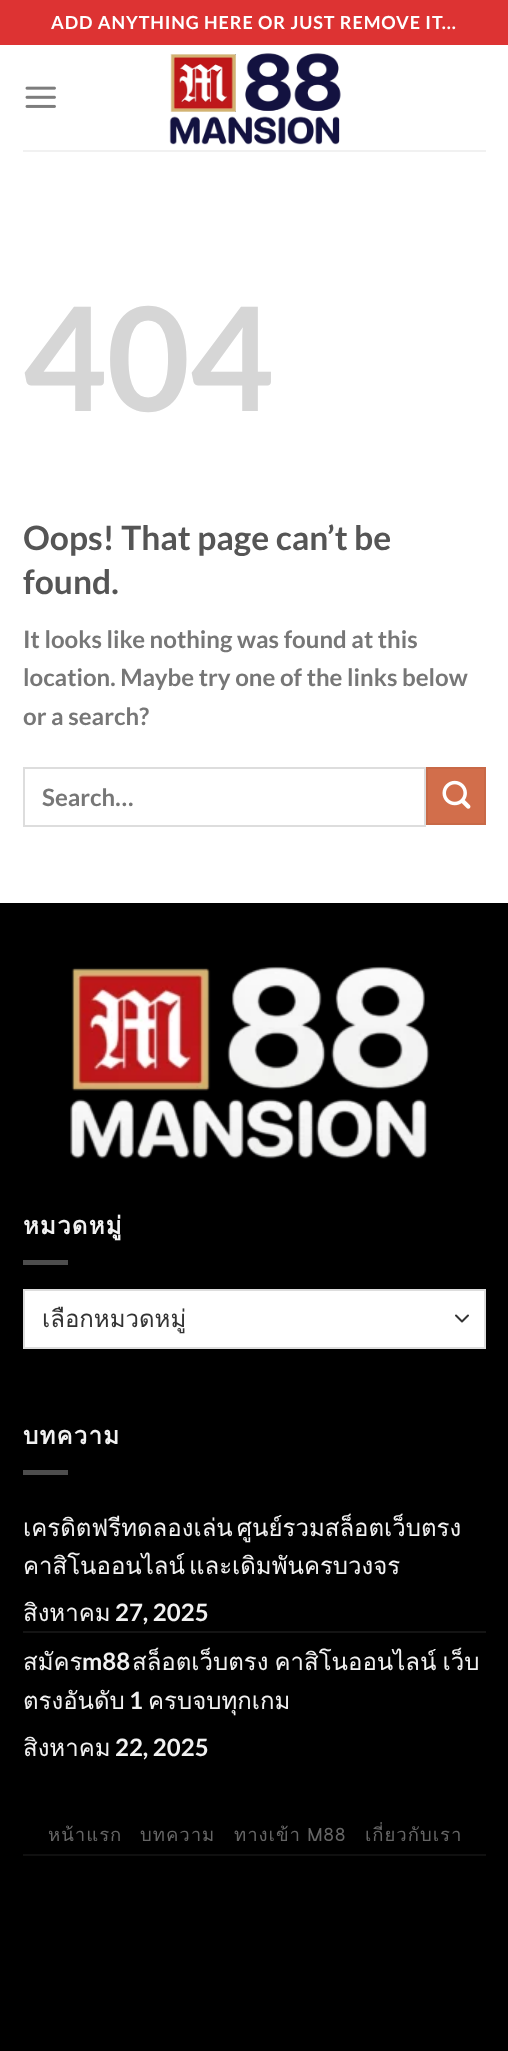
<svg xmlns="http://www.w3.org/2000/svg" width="508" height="2051">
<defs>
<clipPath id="clip1"><rect x="42" y="1299" width="410" height="39"/></clipPath>
</defs>
<rect width="100%" height="100%" fill="#000"/>
<rect y="45" width="508" height="858" fill="#fff"/>
<rect width="508" height="45" fill="#d33"/>
<text x="51" y="29" style="font-family:Lato;font-size:18px;font-weight:bold;letter-spacing:0.9px;fill:#fff">ADD ANYTHING HERE OR JUST REMOVE IT...</text>
<image x="25" y="86" width="31" height="22" href="media/1.png"/>
<image x="169" y="53" width="172" height="92" href="media/2.png"/>
<rect x="23" y="150" width="463" height="2" fill="#f1f1f1"/>
<text x="23" y="411" style="font-family:Lato;font-size:144px;font-weight:bold;fill:#d6d6d6">404</text>
<text x="23" y="550" style="font-family:Lato;font-size:33.6px;font-weight:bold;fill:#555">Oops! That page can’t be</text>
<text x="23" y="594" style="font-family:Lato;font-size:33.6px;font-weight:bold;fill:#555">found.</text>
<text x="23" y="648" style="font-family:Lato;font-size:24px;font-weight:bold;fill:#777">It looks like nothing was found at this</text>
<text x="23" y="686" style="font-family:Lato;font-size:24px;font-weight:bold;fill:#777">location. Maybe try one of the links below</text>
<text x="23" y="725" style="font-family:Lato;font-size:24px;font-weight:bold;fill:#777">or a search?</text>
<rect x="24" y="768" width="401" height="58" fill="none" stroke="#ddd" stroke-width="2"/>
<text x="42" y="806" style="font-family:Lato;font-size:24px;font-weight:bold;fill:#777">Search…</text>
<rect x="427" y="768" width="58" height="56" fill="#d26e4b" stroke="#c86947" stroke-width="2"/>
<image x="442" y="780" width="29" height="29" href="media/3.png"/>
<image x="70" y="966" width="360" height="193" href="media/4.png"/>
<text x="23" y="1234" style="font-family:Loma;font-size:24px;font-weight:bold;letter-spacing:1.25px;fill:#f1f1f1">หมวดหมู่</text>
<rect x="23" y="1260" width="45" height="5" fill="#4d4d4d"/>
<rect x="25" y="1291" width="459" height="56" fill="#fff"/>
<path d="M456 1315.5l6 6l6-6" fill="none" stroke="#333" stroke-width="2" stroke-linecap="round" stroke-linejoin="round"/>
<rect x="24" y="1290" width="461" height="58" fill="none" stroke="#ddd" stroke-width="2"/>
<g clip-path="url(#clip1)">
<text x="42" y="1327" style="font-family:Loma;font-size:24px;fill:#333">เลือกหมวดหมู่</text>
</g>
<text x="23" y="1444" style="font-family:Loma;font-size:24px;font-weight:bold;letter-spacing:1.25px;fill:#f1f1f1">บทความ</text>
<rect x="23" y="1470" width="45" height="5" fill="#4d4d4d"/>
<text x="23" y="1536" word-spacing="-4" style="font-family:Loma;font-size:24px;fill:#f1f1f1">เครดิตฟรีทดลองเล่น ศูนย์รวมสล็อตเว็บตรง</text>
<text x="23" y="1574" word-spacing="-4" style="font-family:Loma;font-size:24px;fill:#f1f1f1">คาสิโนออนไลน์ และเดิมพันครบวงจร</text>
<text x="23" y="1621" style="font-family:Loma;font-size:24px;fill:#f1f1f1">สิงหาคม</text>
<text x="115" y="1621" style="font-family:Lato;font-size:24px;font-weight:bold;fill:#f1f1f1">27, 2025</text>
<rect x="23" y="1631" width="463" height="2" fill="#141414"/>
<text x="23" y="1670" style="font-family:Loma;font-size:24px;fill:#f1f1f1">สมัคร</text>
<text x="82" y="1670" style="font-family:Lato;font-size:24px;font-weight:bold;fill:#f1f1f1">m88</text>
<text x="132" y="1670" word-spacing="-2" style="font-family:Loma;font-size:24px;fill:#f1f1f1">สล็อตเว็บตรง คาสิโนออนไลน์ เว็บ</text>
<text x="23" y="1709" style="font-family:Loma;font-size:24px;fill:#f1f1f1">ตรงอันดับ</text>
<text x="129" y="1709" style="font-family:Lato;font-size:24px;font-weight:bold;fill:#f1f1f1">1</text>
<text x="148" y="1709" style="font-family:Loma;font-size:24px;fill:#f1f1f1">ครบจบทุกเกม</text>
<text x="23" y="1756" style="font-family:Loma;font-size:24px;fill:#f1f1f1">สิงหาคม</text>
<text x="115" y="1756" style="font-family:Lato;font-size:24px;font-weight:bold;fill:#f1f1f1">22, 2025</text>
<rect x="23" y="1854" width="463" height="2" fill="#101010"/>
<text x="48" y="1841" style="font-family:Loma;font-size:18.5px;letter-spacing:1px;fill:#666">หน้าแรก</text>
<text x="140" y="1841" style="font-family:Loma;font-size:18.5px;letter-spacing:1px;fill:#666">บทความ</text>
<text x="234" y="1841" word-spacing="-1" style="font-family:Loma;font-size:18.5px;letter-spacing:1px;fill:#666">ทางเข้า M88</text>
<text x="365" y="1841" style="font-family:Loma;font-size:18.5px;letter-spacing:1px;fill:#666">เกี่ยวกับเรา</text>
</svg>
